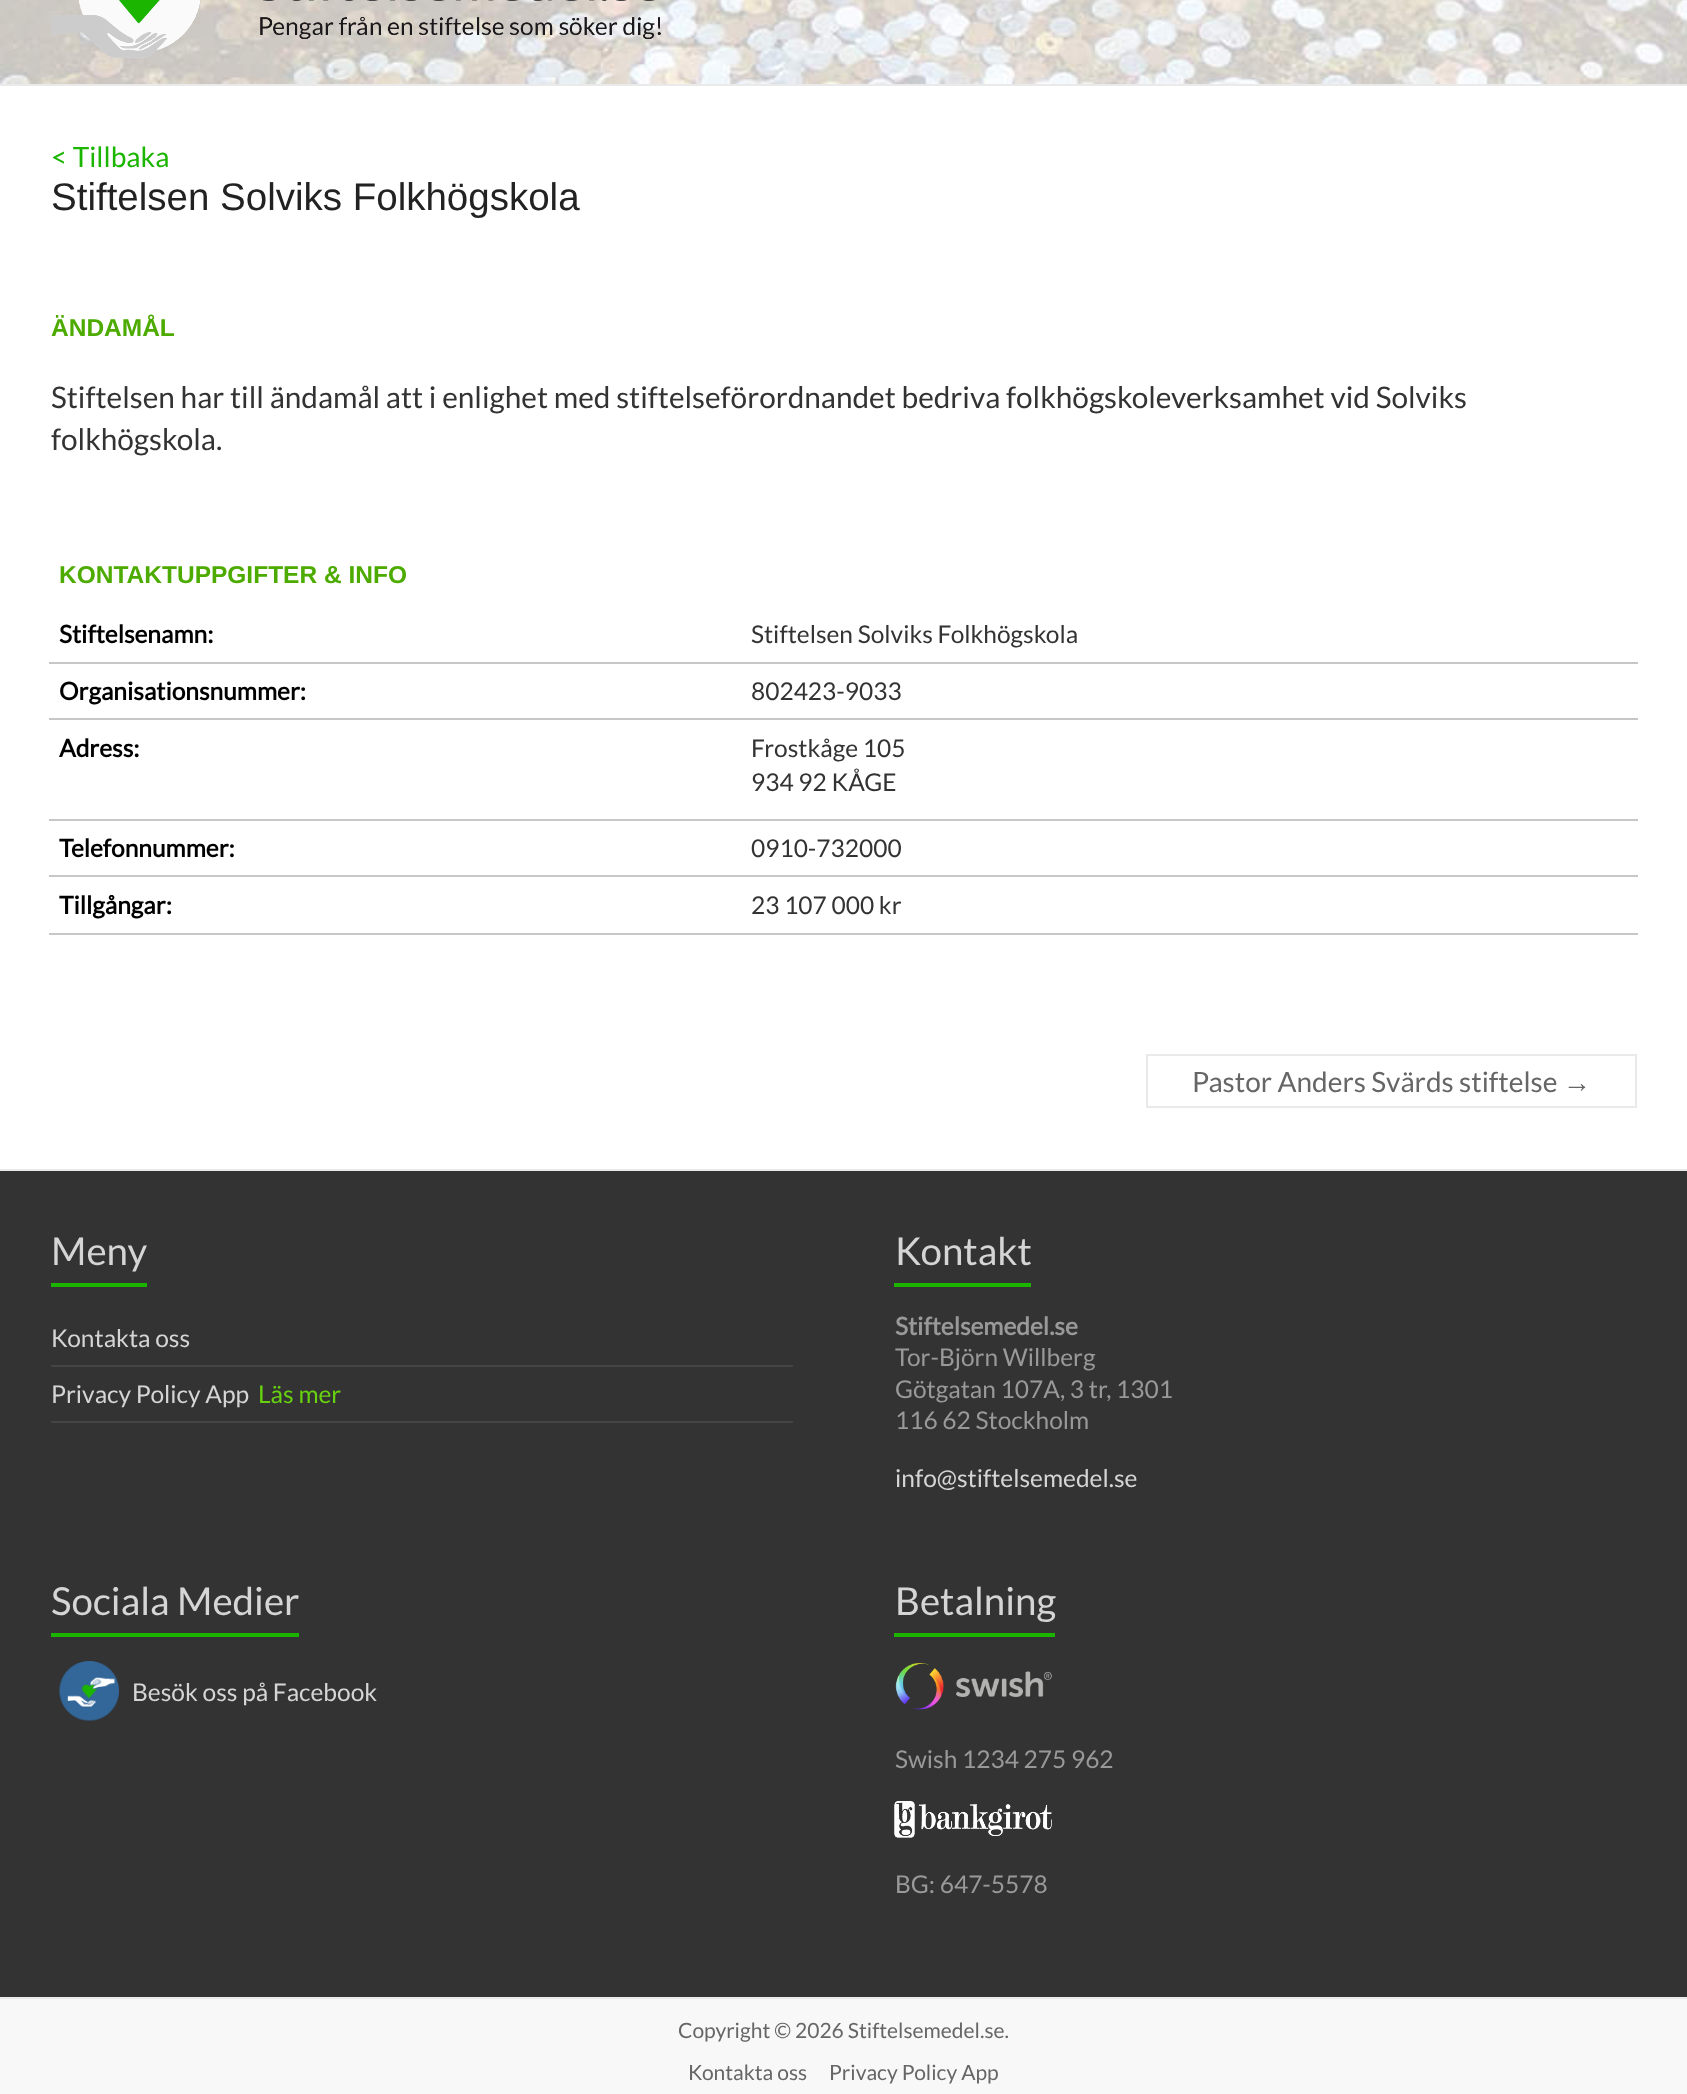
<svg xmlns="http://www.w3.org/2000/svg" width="1687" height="2094">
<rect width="100%" height="100%" fill="#fff"/>
<image x="0" y="0" width="1687" height="84" href="media/1.png"/>
<rect y="84" width="1687" height="2" fill="#eaeaea"/>
<image x="51" y="0" width="610" height="58" href="media/2.png"/>
<text x="51" y="167" style="font-family:Lato;font-size:28px;fill:#1bb500">&lt; Tillbaka</text>
<text x="51" y="210" style="font-family:Liberation Sans;font-size:38.5px;fill:#222">Stiftelsen Solviks Folkhögskola</text>
<text x="51" y="336" style="font-family:Liberation Sans;font-size:24.5px;font-weight:bold;fill:#4dab00">ÄNDAMÅL</text>
<text x="51" y="408" style="font-family:Lato;font-size:29.75px;fill:#333">Stiftelsen har till ändamål att i enlighet med stiftelseförordnandet bedriva folkhögskoleverksamhet vid Solviks</text>
<text x="51" y="450" style="font-family:Lato;font-size:29.75px;fill:#333">folkhögskola.</text>
<text x="59" y="583" style="font-family:Liberation Sans;font-size:24.5px;font-weight:bold;fill:#4dab00">KONTAKTUPPGIFTER &amp; INFO</text>
<rect x="49" y="662" width="1589" height="2" fill="#c7c7c7"/>
<text x="59" y="643" style="font-family:Lato;font-size:24.5px;font-weight:bold;fill:#000">Stiftelsenamn:</text>
<text x="751" y="643" style="font-family:Lato;font-size:24.5px;fill:#333">Stiftelsen Solviks Folkhögskola</text>
<rect x="49" y="718" width="1589" height="2" fill="#c7c7c7"/>
<text x="59" y="700" style="font-family:Lato;font-size:24.5px;font-weight:bold;fill:#000">Organisationsnummer:</text>
<text x="751" y="700" style="font-family:Lato;font-size:24.5px;fill:#333">802423-9033</text>
<rect x="49" y="819" width="1589" height="2" fill="#c7c7c7"/>
<text x="59" y="757" style="font-family:Lato;font-size:24.5px;font-weight:bold;fill:#000">Adress:</text>
<text x="751" y="757" style="font-family:Lato;font-size:24.5px;fill:#333">Frostkåge 105</text>
<text x="751" y="791" style="font-family:Lato;font-size:24.5px;fill:#333">934 92 KÅGE</text>
<rect x="49" y="875" width="1589" height="2" fill="#c7c7c7"/>
<text x="59" y="857" style="font-family:Lato;font-size:24.5px;font-weight:bold;fill:#000">Telefonnummer:</text>
<text x="751" y="857" style="font-family:Lato;font-size:24.5px;fill:#333">0910-732000</text>
<rect x="49" y="933" width="1589" height="2" fill="#c7c7c7"/>
<text x="59" y="914" style="font-family:Lato;font-size:24.5px;font-weight:bold;fill:#000">Tillgångar:</text>
<text x="751" y="914" style="font-family:Lato;font-size:24.5px;fill:#333">23 107 000 kr</text>
<text x="1192" y="1092" style="font-family:Lato;font-size:28px;fill:#666">Pastor Anders Svärds stiftelse</text>
<rect x="1146" y="1054" width="490" height="2" fill="#eaeaea"/>
<rect x="1146" y="1106" width="417" height="2" fill="#eaeaea"/>
<rect x="1146" y="1054" width="2" height="54" fill="#eaeaea"/>
<text x="1563" y="1092" style="font-family:Liberation Sans;font-size:28px;fill:#666">→</text>
<rect x="1635" y="1054" width="2" height="54" fill="#eaeaea"/>
<rect x="1563" y="1106" width="73" height="2" fill="#eaeaea"/>
<rect y="1171" width="1687" height="826" fill="#333"/>
<rect y="1169" width="1687" height="2" fill="#eaeaea"/>
<text x="51" y="1265" style="font-family:Lato;font-size:38.5px;fill:#d5d5d5">Meny</text>
<rect x="51" y="1283" width="96" height="4" fill="#1bb500"/>
<rect x="51" y="1365" width="742" height="2" fill="#444"/>
<text x="51" y="1347" style="font-family:Lato;font-size:24.5px;fill:#d5d5d5">Kontakta oss</text>
<rect x="51" y="1421" width="742" height="2" fill="#444"/>
<text x="51" y="1403" style="font-family:Lato;font-size:24.5px;fill:#d5d5d5">Privacy Policy App</text>
<text x="258" y="1403" style="font-family:Lato;font-size:24.5px;fill:#67d110">Läs mer</text>
<text x="895" y="1265" style="font-family:Lato;font-size:38.5px;fill:#d5d5d5">Kontakt</text>
<rect x="894" y="1283" width="137" height="4" fill="#1bb500"/>
<text x="895" y="1335" style="font-family:Lato;font-size:24.5px;font-weight:bold;fill:#999">Stiftelsemedel.se</text>
<text x="895" y="1366" style="font-family:Lato;font-size:24.5px;fill:#999">Tor-Björn Willberg</text>
<text x="895" y="1398" style="font-family:Lato;font-size:24.5px;fill:#999">Götgatan 107A, 3 tr, 1301</text>
<text x="895" y="1429" style="font-family:Lato;font-size:24.5px;fill:#999">116 62 Stockholm</text>
<text x="895" y="1487" style="font-family:Lato;font-size:24.5px;fill:#d5d5d5">info@stiftelsemedel.se</text>
<text x="51" y="1615" style="font-family:Lato;font-size:38.5px;fill:#d5d5d5">Sociala Medier</text>
<rect x="51" y="1633" width="248" height="4" fill="#1bb500"/>
<image x="59" y="1661" width="60" height="60" href="media/3.png"/>
<text x="132" y="1701" style="font-family:Lato;font-size:24.5px;fill:#d5d5d5">Besök oss på Facebook</text>
<text x="895" y="1615" style="font-family:Lato;font-size:38.5px;fill:#d5d5d5">Betalning</text>
<rect x="894" y="1633" width="161" height="4" fill="#1bb500"/>
<image x="895" y="1663" width="157" height="47" href="media/4.png"/>
<text x="895" y="1768" style="font-family:Lato;font-size:24.5px;fill:#999">Swish 1234 275 962</text>
<image x="894" y="1801" width="158" height="37" href="media/5.png"/>
<text x="895" y="1893" style="font-family:Lato;font-size:24.5px;fill:#999">BG: 647-5578</text>
<rect y="1999" width="1687" height="95" fill="#f8f8f8"/>
<rect y="1997" width="1687" height="2" fill="#eaeaea"/>
<text x="678" y="2038" style="font-family:Lato;font-size:21px;fill:#666">Copyright © 2026 Stiftelsemedel.se.</text>
<text x="688" y="2080" style="font-family:Lato;font-size:21px;fill:#666">Kontakta oss</text>
<text x="829" y="2080" style="font-family:Lato;font-size:21px;fill:#666">Privacy Policy App</text>
</svg>
